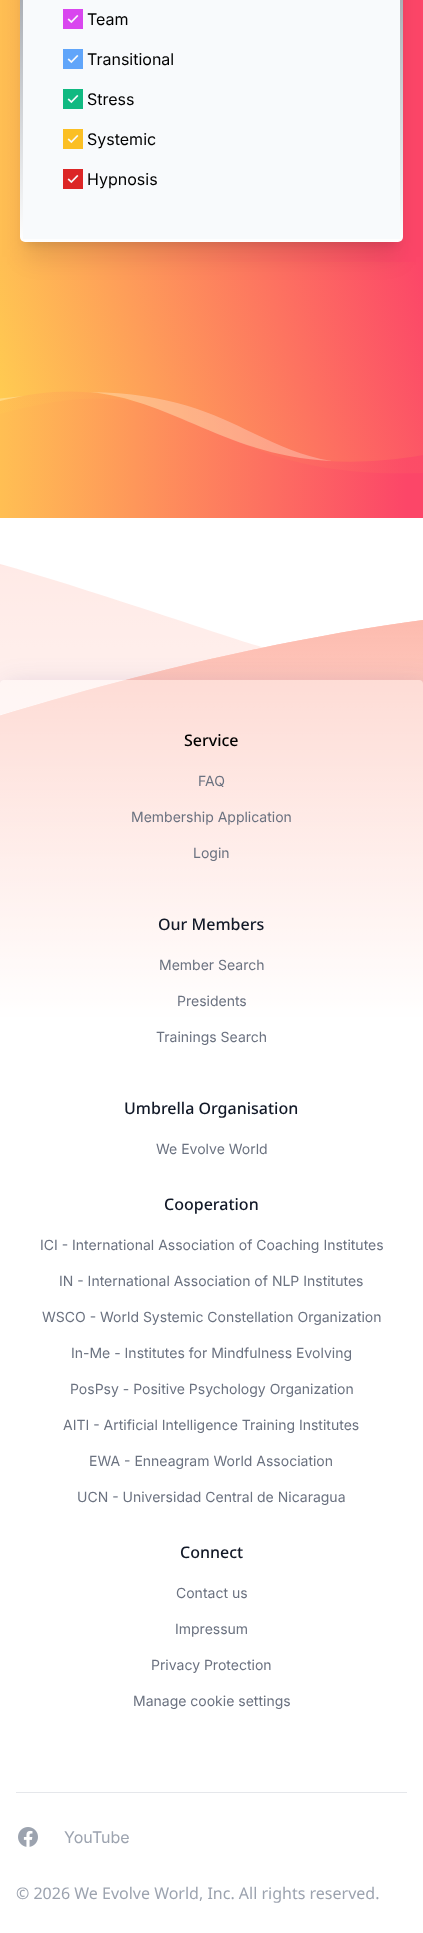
<svg xmlns="http://www.w3.org/2000/svg" width="423" height="1933">
<defs>
<linearGradient id="g1" gradientUnits="userSpaceOnUse" x1="0" y1="-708" x2="423" y2="-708"><stop offset="0" stop-color="#ffbf53"/><stop offset="0.96" stop-color="#fc4668"/></linearGradient>
<linearGradient id="g2" gradientUnits="userSpaceOnUse" x1="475" y1="269" x2="6.4" y2="422"><stop offset="0" stop-color="#fc4668" stop-opacity="0.2"/><stop offset="1" stop-color="#ffcb51" stop-opacity="0.2"/></linearGradient>
<linearGradient id="g3" gradientUnits="userSpaceOnUse" x1="423" y1="269" x2="0" y2="397"><stop offset="0" stop-color="#fc4668"/><stop offset="1" stop-color="#ffcb51"/></linearGradient>
<linearGradient id="g4" gradientUnits="userSpaceOnUse" x1="211" y1="-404" x2="212" y2="242"><stop offset="0" stop-color="#1e293b"/><stop offset="1" stop-color="#fff"/></linearGradient>
<linearGradient id="g5" gradientUnits="userSpaceOnUse" x1="212" y1="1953" x2="212" y2="518"><stop offset="0.65" stop-color="#fff"/><stop offset="1" stop-color="#fff" stop-opacity="0"/></linearGradient>
<clipPath id="clip1"><path d="M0 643h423v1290h-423zm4 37h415c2 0 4 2 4 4v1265c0 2-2 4-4 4h-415c-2 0-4-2-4-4v-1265c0-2 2-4 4-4z" clip-rule="evenodd"/></clipPath>
</defs>
<rect width="100%" height="100%" fill="#fff"/>
<rect width="423" height="518" fill="url(#g1)"/>
<rect x="26" y="-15" width="371" height="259" fill="#0000001a" filter="blur(5px)"/>
<path d="M423 262h-423v152c211-58 185 67 423 59z" fill="url(#g2)"/>
<path d="M423 262h-423v139c179-46 205 92 423 54z" fill="url(#g3)"/>
<rect x="25" y="-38" width="373" height="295" fill="#0000001a" filter="blur(12.5px)"/>
<rect x="20" y="-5" width="383" height="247" rx="5" fill="url(#g4)"/>
<rect x="23" width="377" height="239" fill="#f8fafc"/>
<image x="63" y="9" width="20" height="20" href="media/1.png"/>
<text x="87" y="25" style="font-family:Inter;font-size:16px;fill:#000">Team</text>
<image x="63" y="49" width="20" height="20" href="media/2.png"/>
<text x="87" y="65" style="font-family:Inter;font-size:16px;fill:#000">Transitional</text>
<image x="63" y="89" width="20" height="20" href="media/3.png"/>
<text x="87" y="105" style="font-family:Inter;font-size:16px;fill:#000">Stress</text>
<image x="63" y="129" width="20" height="20" href="media/4.png"/>
<text x="87" y="145" style="font-family:Inter;font-size:16px;fill:#000">Systemic</text>
<image x="63" y="169" width="20" height="20" href="media/5.png"/>
<text x="87" y="185" style="font-family:Inter;font-size:16px;fill:#000">Hypnosis</text>
<path d="M332 461c-31-5-54-16-79-28c-39-19-82-40-163-41c39 4 71 18 104 32c39 17 80 34 138 37z" fill="#ffffff45"/>
<path d="M24 396l-24 2.5v2.5c8.5-2 16.5-4 24-5z" fill="#ffffff45"/>
<image x="0" y="564" width="423" height="453" href="media/6.png"/>
<rect y="566" width="423" height="451" fill="url(#g5)"/>
<g clip-path="url(#clip1)">
<rect x="5" y="689" width="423" height="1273" rx="4" fill="#221c7e33" filter="blur(15px)"/>
</g>
<rect y="680" width="423" height="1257" rx="4" fill="#ffffff66"/>
<text x="184" y="746" style="font-family:Noto Sans;font-size:16px;font-weight:500;fill:#000">Service</text>
<text x="198" y="786" style="font-family:Inter;font-size:14px;fill:#6b7280">FAQ</text>
<text x="131" y="822" style="font-family:Inter;font-size:14px;fill:#6b7280">Membership Application</text>
<text x="193" y="858" style="font-family:Inter;font-size:14px;fill:#6b7280">Login</text>
<text x="158" y="930" style="font-family:Noto Sans;font-size:16px;font-weight:500;fill:#111827">Our Members</text>
<text x="159" y="970" style="font-family:Inter;font-size:14px;fill:#6b7280">Member Search</text>
<text x="177" y="1006" style="font-family:Inter;font-size:14px;fill:#6b7280">Presidents</text>
<text x="156" y="1042" style="font-family:Inter;font-size:14px;fill:#6b7280">Trainings Search</text>
<text x="124" y="1114" style="font-family:Noto Sans;font-size:16px;font-weight:500;fill:#111827">Umbrella Organisation</text>
<text x="156" y="1154" style="font-family:Inter;font-size:14px;fill:#6b7280">We Evolve World</text>
<text x="164" y="1210" style="font-family:Noto Sans;font-size:16px;font-weight:500;fill:#111827">Cooperation</text>
<text x="40" y="1250" style="font-family:Inter;font-size:14px;fill:#6b7280">ICI - International Association of Coaching Institutes</text>
<text x="59" y="1286" style="font-family:Inter;font-size:14px;fill:#6b7280">IN - International Association of NLP Institutes</text>
<text x="42" y="1322" style="font-family:Inter;font-size:14px;fill:#6b7280">WSCO - World Systemic Constellation Organization</text>
<text x="71" y="1358" style="font-family:Inter;font-size:14px;fill:#6b7280">In-Me - Institutes for Mindfulness Evolving</text>
<text x="70" y="1394" style="font-family:Inter;font-size:14px;fill:#6b7280">PosPsy - Positive Psychology Organization</text>
<text x="63" y="1430" style="font-family:Inter;font-size:14px;fill:#6b7280">AITI - Artificial Intelligence Training Institutes</text>
<text x="89" y="1466" style="font-family:Inter;font-size:14px;fill:#6b7280">EWA - Enneagram World Association</text>
<text x="77" y="1502" style="font-family:Inter;font-size:14px;fill:#6b7280">UCN - Universidad Central de Nicaragua</text>
<text x="180" y="1558" style="font-family:Noto Sans;font-size:16px;font-weight:500;fill:#111827">Connect</text>
<text x="176" y="1598" style="font-family:Inter;font-size:14px;fill:#6b7280">Contact us</text>
<text x="175" y="1634" style="font-family:Inter;font-size:14px;fill:#6b7280">Impressum</text>
<text x="151" y="1670" style="font-family:Inter;font-size:14px;fill:#6b7280">Privacy Protection</text>
<text x="133" y="1706" style="font-family:Inter;font-size:14px;fill:#6b7280">Manage cookie settings</text>
<rect x="16" y="1792" width="391" height="1" fill="#e5e7eb"/>
<image x="18" y="1827" width="20" height="20" href="media/7.png"/>
<text x="64" y="1843" style="font-family:Inter;font-size:16px;fill:#9ca3af">YouTube</text>
<text x="16" y="1899" style="font-family:Noto Sans;font-size:16px;fill:#9ca3af">© 2026 We Evolve World, Inc. All rights reserved.</text>
</svg>
